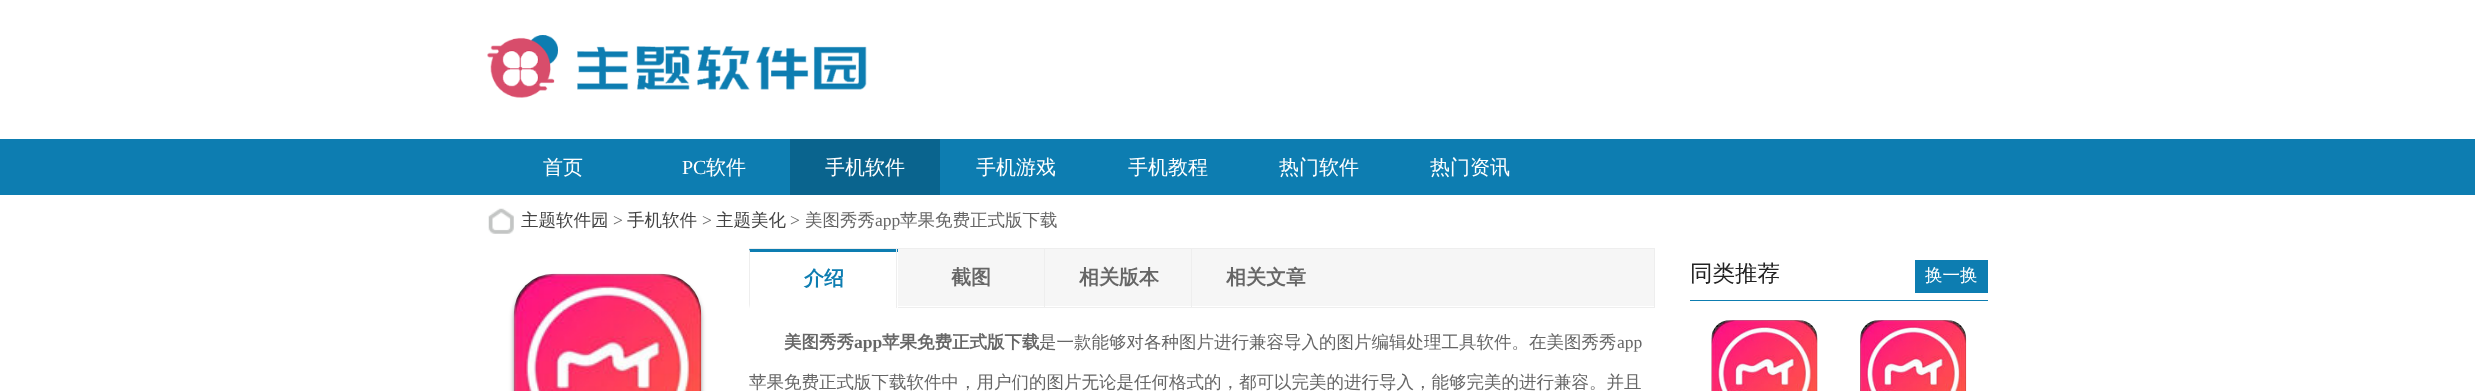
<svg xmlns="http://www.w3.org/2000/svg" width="2475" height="391">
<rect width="100%" height="100%" fill="#fff"/>
<image x="487" y="35" width="380" height="63" href="media/1.png"/>
<rect y="139" width="2475" height="56" fill="#0d7db1"/>
<text x="543" y="174" style="font-family:WenQuanYi Zen Hei;font-size:20px;font-weight:500;fill:#fff">首页</text>
<text x="682" y="174" style="font-family:Liberation Serif;font-size:20px;fill:#fff">PC</text>
<text x="706" y="174" style="font-family:WenQuanYi Zen Hei;font-size:20px;font-weight:500;fill:#fff">软件</text>
<rect x="790" y="139" width="150" height="56" fill="#0a648e"/>
<text x="825" y="174" style="font-family:WenQuanYi Zen Hei;font-size:20px;font-weight:500;fill:#fff">手机软件</text>
<text x="976" y="174" style="font-family:WenQuanYi Zen Hei;font-size:20px;font-weight:500;fill:#fff">手机游戏</text>
<text x="1128" y="174" style="font-family:WenQuanYi Zen Hei;font-size:20px;font-weight:500;fill:#fff">手机教程</text>
<text x="1279" y="174" style="font-family:WenQuanYi Zen Hei;font-size:20px;font-weight:500;fill:#fff">热门软件</text>
<text x="1430" y="174" style="font-family:WenQuanYi Zen Hei;font-size:20px;font-weight:500;fill:#fff">热门资讯</text>
<image x="488" y="208" width="26" height="26" href="media/2.png"/>
<text x="521" y="226" style="font-family:WenQuanYi Zen Hei;font-size:17.5px;font-weight:500;fill:#444">主题软件园</text>
<text x="613" y="226" style="font-family:Liberation Serif;font-size:17.5px;fill:#666">&gt;</text>
<text x="627" y="226" style="font-family:WenQuanYi Zen Hei;font-size:17.5px;font-weight:500;fill:#444">手机软件</text>
<text x="702" y="226" style="font-family:Liberation Serif;font-size:17.5px;fill:#666">&gt;</text>
<text x="716" y="226" style="font-family:WenQuanYi Zen Hei;font-size:17.5px;font-weight:500;fill:#444">主题美化</text>
<text x="790" y="226" style="font-family:Liberation Serif;font-size:17.5px;fill:#666">&gt;</text>
<text x="805" y="226" style="font-family:WenQuanYi Zen Hei;font-size:17.5px;font-weight:500;fill:#666">美图秀秀</text>
<text x="875" y="226" style="font-family:Liberation Serif;font-size:17.5px;fill:#666">app</text>
<text x="900" y="226" style="font-family:WenQuanYi Zen Hei;font-size:17.5px;font-weight:500;fill:#666">苹果免费正式版下载</text>
<rect x="514" y="278" width="187" height="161" rx="40" fill="#00000066" filter="blur(2.5px)"/>
<image x="513" y="273" width="189" height="118" href="media/3.png"/>
<rect x="749.5" y="248.5" width="905" height="59" fill="none" stroke="#eee"/>
<rect x="898" y="249" width="756" height="57" fill="#f6f6f6"/>
<rect x="749" y="249" width="149" height="59" fill="#fff"/>
<path d="M749 249h149v3h-148z" fill="#0d7db1"/>
<path d="M749 309v-60l1 3v52z" fill="#eee"/>
<text x="804" y="285" style="font-family:WenQuanYi Zen Hei;font-size:20px;font-weight:bold;fill:#0d7db1">介绍</text>
<rect x="896" y="249" width="1" height="59" fill="#eee"/>
<text x="951" y="284" style="font-family:WenQuanYi Zen Hei;font-size:20px;font-weight:bold;fill:#666">截图</text>
<rect x="1044" y="249" width="1" height="59" fill="#eee"/>
<text x="1079" y="284" style="font-family:WenQuanYi Zen Hei;font-size:20px;font-weight:bold;fill:#666">相关版本</text>
<rect x="1191" y="249" width="1" height="59" fill="#eee"/>
<text x="1226" y="284" style="font-family:WenQuanYi Zen Hei;font-size:20px;font-weight:bold;fill:#666">相关文章</text>
<text x="784" y="348" style="font-family:WenQuanYi Zen Hei;font-size:17.5px;font-weight:bold;fill:#666">美图秀秀</text>
<text x="854" y="348" style="font-family:Liberation Serif;font-size:17.5px;font-weight:bold;fill:#666">app</text>
<text x="882" y="348" style="font-family:WenQuanYi Zen Hei;font-size:17.5px;font-weight:bold;fill:#666">苹果免费正式版下载</text>
<text x="1039" y="348" style="font-family:WenQuanYi Zen Hei;font-size:17.5px;font-weight:500;fill:#666">是一款能够对各种图片进行兼容导入的图片编辑处理工具软件。在美图秀秀</text>
<text x="1617" y="348" style="font-family:Liberation Serif;font-size:17.5px;fill:#666">app</text>
<text x="749" y="388" style="font-family:WenQuanYi Zen Hei;font-size:17.5px;font-weight:500;fill:#666">苹果免费正式版下载软件中，用户们的图片无论是任何格式的，都可以完美的进行导入，能够完美的进行兼容。并且</text>
<rect x="1690" y="300" width="298" height="1" fill="#0d7db1"/>
<text x="1690" y="281" style="font-family:WenQuanYi Zen Hei;font-size:22.5px;font-weight:500;fill:#222">同类推荐</text>
<rect x="1915" y="260" width="73" height="33" fill="#0d7db1"/>
<text x="1925" y="281" style="font-family:WenQuanYi Zen Hei;font-size:17.5px;font-weight:500;fill:#fff">换一换</text>
<image x="1711" y="320" width="107" height="71" href="media/4.png"/>
<image x="1860" y="320" width="107" height="71" href="media/5.png"/>
</svg>
